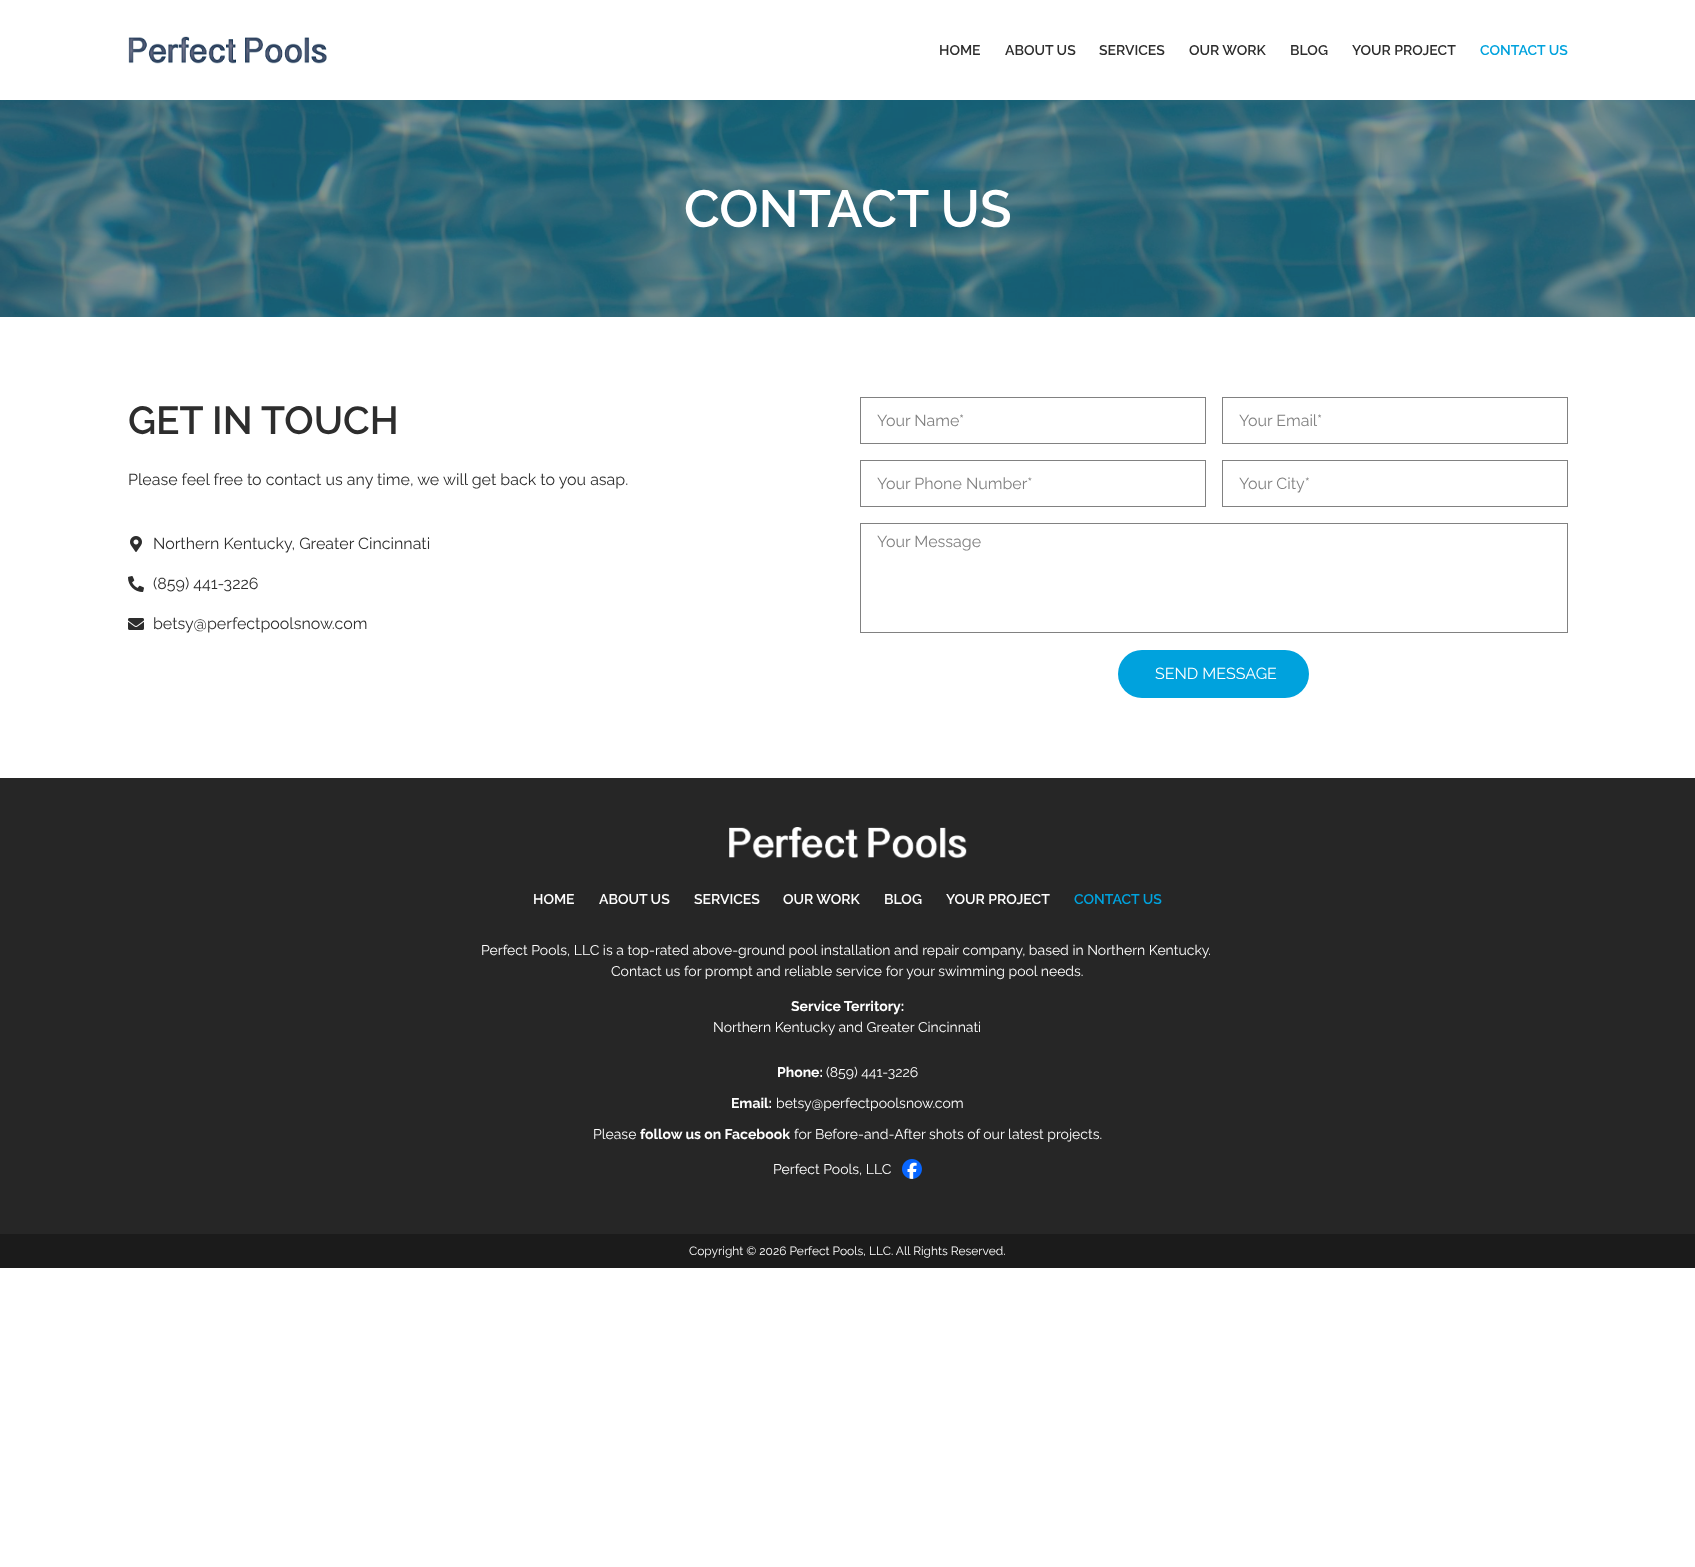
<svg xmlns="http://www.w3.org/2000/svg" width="1695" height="1567">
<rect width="100%" height="100%" fill="#fff"/>
<image x="128" y="36" width="199" height="28" href="media/1.png"/>
<text x="939" y="55" style="font-family:Raleway;font-size:14px;font-weight:600;fill:#2d2d2d">HOME</text>
<text x="1005" y="55" style="font-family:Raleway;font-size:14px;font-weight:600;fill:#2d2d2d">ABOUT US</text>
<text x="1099" y="55" style="font-family:Raleway;font-size:14px;font-weight:600;fill:#2d2d2d">SERVICES</text>
<text x="1189" y="55" style="font-family:Raleway;font-size:14px;font-weight:600;fill:#2d2d2d">OUR WORK</text>
<text x="1290" y="55" style="font-family:Raleway;font-size:14px;font-weight:600;fill:#2d2d2d">BLOG</text>
<text x="1352" y="55" style="font-family:Raleway;font-size:14px;font-weight:600;fill:#2d2d2d">YOUR PROJECT</text>
<text x="1480" y="55" style="font-family:Raleway;font-size:14px;font-weight:600;fill:#00a2dd">CONTACT US</text>
<image x="0" y="100" width="1695" height="217" href="media/2.png"/>
<text x="684" y="227" style="font-family:Raleway;font-size:52.25px;font-weight:600;fill:#fff">CONTACT US</text>
<text x="128" y="434" style="font-family:Raleway;font-size:39px;font-weight:600;fill:#2d2d2d">GET IN TOUCH</text>
<text x="128" y="485" style="font-family:Raleway;font-size:16px;fill:#2d2d2d">Please feel free to contact us any time, we will get back to you asap.</text>
<image x="130" y="536" width="12" height="16" href="media/3.png"/>
<text x="153" y="549" style="font-family:Raleway;font-size:16px;fill:#2d2d2d">Northern Kentucky, Greater Cincinnati</text>
<image x="128" y="576" width="16" height="16" href="media/4.png"/>
<text x="153" y="589" style="font-family:Raleway;font-size:16px;fill:#2d2d2d">(859) 441-3226</text>
<image x="128" y="618" width="16" height="12" href="media/5.png"/>
<text x="153" y="629" style="font-family:Raleway;font-size:16px;fill:#2d2d2d">betsy@perfectpoolsnow.com</text>
<rect x="860.5" y="397.5" width="345" height="46" fill="none" stroke="#818181"/>
<text x="877" y="426" style="font-family:Raleway;font-size:16px;fill:#818181">Your Name*</text>
<rect x="1222.5" y="397.5" width="345" height="46" fill="none" stroke="#818181"/>
<text x="1239" y="426" style="font-family:Raleway;font-size:16px;fill:#818181">Your Email*</text>
<rect x="860.5" y="460.5" width="345" height="46" fill="none" stroke="#818181"/>
<text x="877" y="489" style="font-family:Raleway;font-size:16px;fill:#818181">Your Phone Number*</text>
<rect x="1222.5" y="460.5" width="345" height="46" fill="none" stroke="#818181"/>
<text x="1239" y="489" style="font-family:Raleway;font-size:16px;fill:#818181">Your City*</text>
<rect x="860.5" y="523.5" width="707" height="109" fill="none" stroke="#818181"/>
<text x="877" y="547" style="font-family:Raleway;font-size:16px;fill:#818181">Your Message</text>
<rect x="1118" y="650" width="191" height="48" rx="24" fill="#00a2dd"/>
<text x="1155" y="679" style="font-family:Raleway;font-size:16px;fill:#fff">SEND MESSAGE</text>
<rect y="778" width="1695" height="456" fill="#262626"/>
<image x="729" y="827" width="238" height="32" href="media/6.png"/>
<text x="533" y="904" style="font-family:Raleway;font-size:14px;font-weight:600;fill:#fff">HOME</text>
<text x="599" y="904" style="font-family:Raleway;font-size:14px;font-weight:600;fill:#fff">ABOUT US</text>
<text x="694" y="904" style="font-family:Raleway;font-size:14px;font-weight:600;fill:#fff">SERVICES</text>
<text x="783" y="904" style="font-family:Raleway;font-size:14px;font-weight:600;fill:#fff">OUR WORK</text>
<text x="884" y="904" style="font-family:Raleway;font-size:14px;font-weight:600;fill:#fff">BLOG</text>
<text x="946" y="904" style="font-family:Raleway;font-size:14px;font-weight:600;fill:#fff">YOUR PROJECT</text>
<text x="1074" y="904" style="font-family:Raleway;font-size:14px;font-weight:600;fill:#00a2dd">CONTACT US</text>
<text x="481" y="955" style="font-family:Raleway;font-size:14px;fill:#fff">Perfect Pools, LLC is a top-rated above-ground pool installation and repair company, based in Northern Kentucky.</text>
<text x="611" y="976" style="font-family:Raleway;font-size:14px;fill:#fff">Contact us for prompt and reliable service for your swimming pool needs.</text>
<text x="791" y="1011" style="font-family:Raleway;font-size:14px;font-weight:bold;fill:#fff">Service Territory:</text>
<text x="713" y="1032" style="font-family:Raleway;font-size:14px;fill:#fff">Northern Kentucky and Greater Cincinnati</text>
<text x="777" y="1077" style="font-family:Raleway;font-size:14px;font-weight:bold;fill:#fff">Phone:</text>
<text x="826" y="1077" style="font-family:Raleway;font-size:14px;fill:#fff">(859) 441-3226</text>
<text x="731" y="1108" style="font-family:Raleway;font-size:14px;font-weight:bold;fill:#fff">Email:</text>
<text x="776" y="1108" style="font-family:Raleway;font-size:14px;fill:#fff">betsy@perfectpoolsnow.com</text>
<text x="593" y="1139" style="font-family:Raleway;font-size:14px;fill:#fff">Please</text>
<text x="640" y="1139" style="font-family:Raleway;font-size:14px;font-weight:bold;fill:#fff">follow us on Facebook</text>
<text x="794" y="1139" style="font-family:Raleway;font-size:14px;fill:#fff">for Before-and-After shots of our latest projects.</text>
<text x="773" y="1174" style="font-family:Raleway;font-size:14px;fill:#fff">Perfect Pools, LLC</text>
<image x="902" y="1159" width="20" height="20" href="media/7.png"/>
<rect y="1234" width="1695" height="34" fill="#1b1b1b"/>
<text x="689" y="1255" style="font-family:Raleway;font-size:12px;fill:#fff">Copyright © 2026 Perfect Pools, LLC. All Rights Reserved.</text>
</svg>
